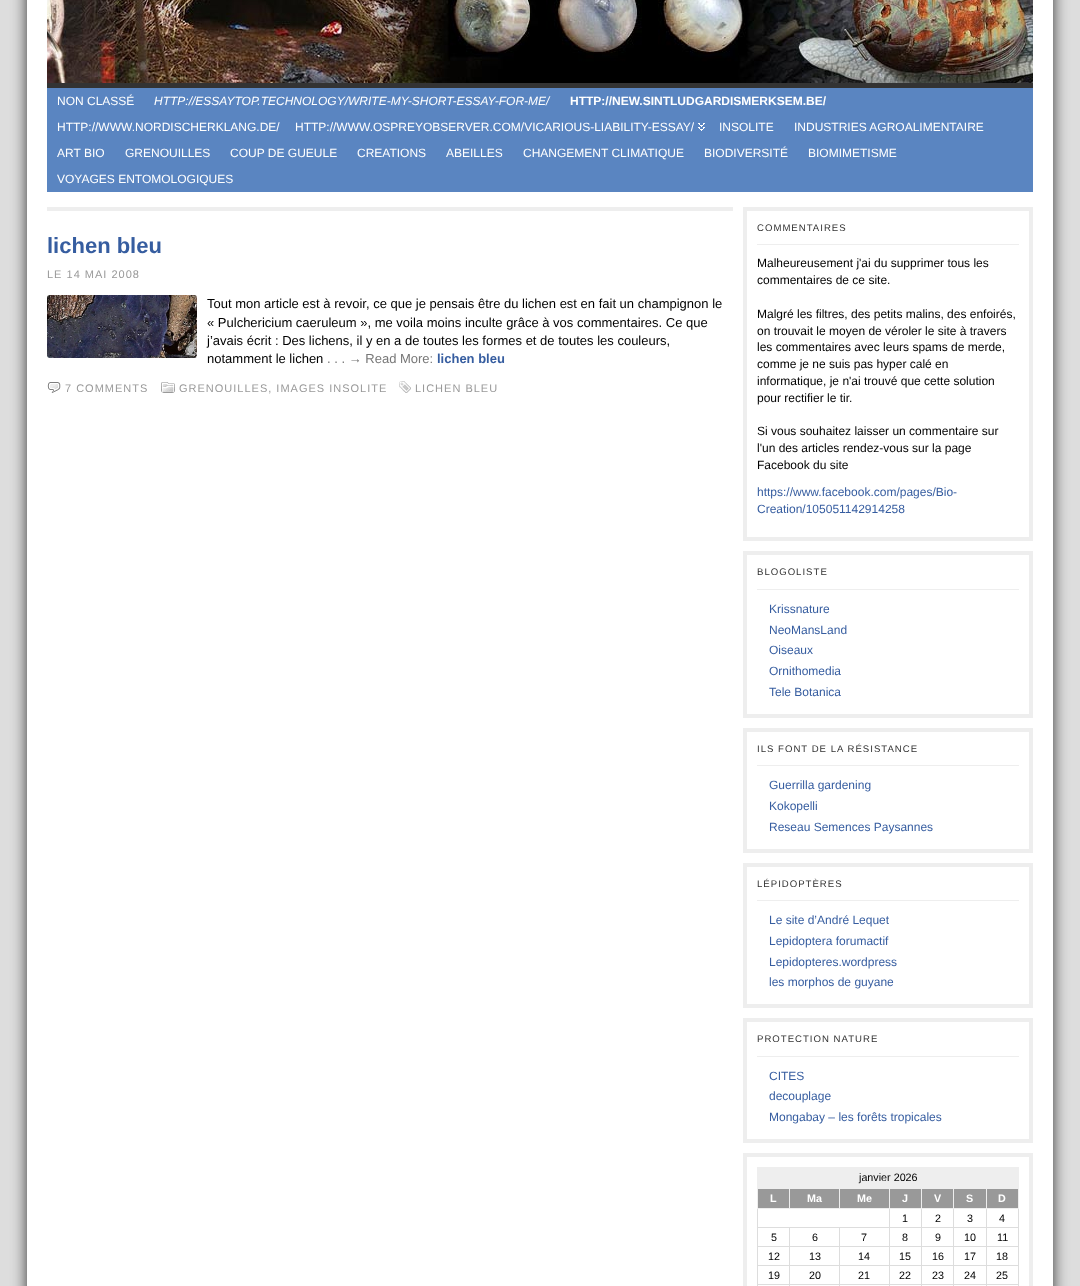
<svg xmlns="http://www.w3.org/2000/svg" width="1080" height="1286">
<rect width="100%" height="100%" fill="#ddd"/>
<rect x="27" y="-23" width="1026" height="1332" fill="#333" filter="blur(7.5px)"/>
<rect x="27" width="1026" height="1286" fill="#fff"/>
<image x="47" y="0" width="986" height="83" href="media/1.png"/>
<rect x="47" y="83" width="986" height="5" fill="#333"/>
<rect x="47" y="88" width="986" height="104" fill="#5a85c1"/>
<text x="57" y="105" style="font-family:Liberation Sans;font-size:12px;fill:#fff">NON CLASSÉ</text>
<text x="154" y="105" style="font-family:Liberation Sans;font-size:12px;font-style:italic;fill:#fff">HTTP://ESSAYTOP.TECHNOLOGY/WRITE-MY-SHORT-ESSAY-FOR-ME/</text>
<text x="570" y="105" style="font-family:Liberation Sans;font-size:12px;font-weight:bold;fill:#fff">HTTP://NEW.SINTLUDGARDISMERKSEM.BE/</text>
<text x="57" y="131" style="font-family:Liberation Sans;font-size:12px;fill:#fff">HTTP://WWW.NORDISCHERKLANG.DE/</text>
<image x="698" y="123" width="7" height="8" href="media/2.png"/>
<text x="295" y="131" style="font-family:Liberation Sans;font-size:12px;fill:#fff">HTTP://WWW.OSPREYOBSERVER.COM/VICARIOUS-LIABILITY-ESSAY/</text>
<text x="719" y="131" style="font-family:Liberation Sans;font-size:12px;fill:#fff">INSOLITE</text>
<text x="794" y="131" style="font-family:Liberation Sans;font-size:12px;fill:#fff">INDUSTRIES AGROALIMENTAIRE</text>
<text x="57" y="157" style="font-family:Liberation Sans;font-size:12px;fill:#fff">ART BIO</text>
<text x="125" y="157" style="font-family:Liberation Sans;font-size:12px;fill:#fff">GRENOUILLES</text>
<text x="230" y="157" style="font-family:Liberation Sans;font-size:12px;fill:#fff">COUP DE GUEULE</text>
<text x="357" y="157" style="font-family:Liberation Sans;font-size:12px;fill:#fff">CREATIONS</text>
<text x="446" y="157" style="font-family:Liberation Sans;font-size:12px;fill:#fff">ABEILLES</text>
<text x="523" y="157" style="font-family:Liberation Sans;font-size:12px;fill:#fff">CHANGEMENT CLIMATIQUE</text>
<text x="704" y="157" style="font-family:Liberation Sans;font-size:12px;fill:#fff">BIODIVERSITÉ</text>
<text x="808" y="157" style="font-family:Liberation Sans;font-size:12px;fill:#fff">BIOMIMETISME</text>
<text x="57" y="183" style="font-family:Liberation Sans;font-size:12px;fill:#fff">VOYAGES ENTOMOLOGIQUES</text>
<rect x="47" y="207" width="686" height="4" fill="#eee"/>
<text x="47" y="253" style="font-family:Liberation Sans;font-size:22px;font-weight:bold;fill:#365da0">lichen bleu</text>
<text x="47" y="278" style="font-family:Liberation Sans;font-size:11px;letter-spacing:1px;fill:#999">LE 14 MAI 2008</text>
<image x="47" y="295" width="150" height="63" href="media/3.png"/>
<text x="207" y="308" style="font-family:Liberation Sans;font-size:13px;fill:#000">Tout mon article est à revoir, ce que je pensais être du lichen est en fait un champignon le</text>
<text x="207" y="327" style="font-family:Liberation Sans;font-size:13px;fill:#000">« Pulchericium caeruleum », me voila moins inculte grâce à vos commentaires. Ce que</text>
<text x="207" y="345" style="font-family:Liberation Sans;font-size:13px;fill:#000">j’avais écrit : Des lichens, il y en a de toutes les formes et de toutes les couleurs,</text>
<text x="207" y="363" style="font-family:Liberation Sans;font-size:13px;fill:#000">notamment le lichen</text>
<text x="327" y="363" style="font-family:Liberation Sans;font-size:13px;fill:#777">. . . → Read More:</text>
<text x="437" y="363" style="font-family:Liberation Sans;font-size:13px;font-weight:bold;fill:#365da0">lichen bleu</text>
<image x="47" y="382" width="14" height="11" href="media/4.png"/>
<text x="65" y="392" style="font-family:Liberation Sans;font-size:11px;letter-spacing:1px;fill:#999">7 COMMENTS</text>
<image x="161" y="382" width="14" height="11" href="media/5.png"/>
<text x="179" y="392" style="font-family:Liberation Sans;font-size:11px;letter-spacing:1px;fill:#999">GRENOUILLES, IMAGES INSOLITE</text>
<image x="399" y="381" width="12" height="12" href="media/6.png"/>
<text x="415" y="392" style="font-family:Liberation Sans;font-size:11px;letter-spacing:1px;fill:#999">LICHEN BLEU</text>
<rect x="745" y="209" width="286" height="330" fill="none" stroke="#eee" stroke-width="4"/>
<rect x="757" y="244" width="262" height="1" fill="#eee"/>
<text x="757" y="231" style="font-family:Liberation Sans;font-size:9.6px;letter-spacing:1px;fill:#333">COMMENTAIRES</text>
<text x="757" y="267" style="font-family:Liberation Sans;font-size:12px;fill:#000">Malheureusement j'ai du supprimer tous les</text>
<text x="757" y="284" style="font-family:Liberation Sans;font-size:12px;fill:#000">commentaires de ce site.</text>
<text x="757" y="318" style="font-family:Liberation Sans;font-size:12px;fill:#000">Malgré les filtres, des petits malins, des enfoirés,</text>
<text x="757" y="335" style="font-family:Liberation Sans;font-size:12px;fill:#000">on trouvait le moyen de véroler le site à travers</text>
<text x="757" y="351" style="font-family:Liberation Sans;font-size:12px;fill:#000">les commentaires avec leurs spams de merde,</text>
<text x="757" y="368" style="font-family:Liberation Sans;font-size:12px;fill:#000">comme je ne suis pas hyper calé en</text>
<text x="757" y="385" style="font-family:Liberation Sans;font-size:12px;fill:#000">informatique, je n'ai trouvé que cette solution</text>
<text x="757" y="402" style="font-family:Liberation Sans;font-size:12px;fill:#000">pour rectifier le tir.</text>
<text x="757" y="435" style="font-family:Liberation Sans;font-size:12px;fill:#000">Si vous souhaitez laisser un commentaire sur</text>
<text x="757" y="452" style="font-family:Liberation Sans;font-size:12px;fill:#000">l'un des articles rendez-vous sur la page</text>
<text x="757" y="469" style="font-family:Liberation Sans;font-size:12px;fill:#000">Facebook du site</text>
<text x="757" y="496" style="font-family:Liberation Sans;font-size:12px;fill:#365da0">https://www.facebook.com/pages/Bio-</text>
<text x="757" y="513" style="font-family:Liberation Sans;font-size:12px;fill:#365da0">Creation/105051142914258</text>
<rect x="745" y="553" width="286" height="163" fill="none" stroke="#eee" stroke-width="4"/>
<rect x="757" y="589" width="262" height="1" fill="#eee"/>
<text x="757" y="575" style="font-family:Liberation Sans;font-size:9.6px;letter-spacing:1px;fill:#333">BLOGOLISTE</text>
<text x="769" y="613" style="font-family:Liberation Sans;font-size:12px;fill:#365da0">Krissnature</text>
<text x="769" y="634" style="font-family:Liberation Sans;font-size:12px;fill:#365da0">NeoMansLand</text>
<text x="769" y="654" style="font-family:Liberation Sans;font-size:12px;fill:#365da0">Oiseaux</text>
<text x="769" y="675" style="font-family:Liberation Sans;font-size:12px;fill:#365da0">Ornithomedia</text>
<text x="769" y="696" style="font-family:Liberation Sans;font-size:12px;fill:#365da0">Tele Botanica</text>
<rect x="745" y="730" width="286" height="121" fill="none" stroke="#eee" stroke-width="4"/>
<rect x="757" y="765" width="262" height="1" fill="#eee"/>
<text x="757" y="752" style="font-family:Liberation Sans;font-size:9.6px;letter-spacing:1px;fill:#333">ILS FONT DE LA RÉSISTANCE</text>
<text x="769" y="789" style="font-family:Liberation Sans;font-size:12px;fill:#365da0">Guerrilla gardening</text>
<text x="769" y="810" style="font-family:Liberation Sans;font-size:12px;fill:#365da0">Kokopelli</text>
<text x="769" y="831" style="font-family:Liberation Sans;font-size:12px;fill:#365da0">Reseau Semences Paysannes</text>
<rect x="745" y="865" width="286" height="141" fill="none" stroke="#eee" stroke-width="4"/>
<rect x="757" y="900" width="262" height="1" fill="#eee"/>
<text x="757" y="887" style="font-family:Liberation Sans;font-size:9.6px;letter-spacing:1px;fill:#333">LÉPIDOPTÈRES</text>
<text x="769" y="924" style="font-family:Liberation Sans;font-size:12px;fill:#365da0">Le site d’André Lequet</text>
<text x="769" y="945" style="font-family:Liberation Sans;font-size:12px;fill:#365da0">Lepidoptera forumactif</text>
<text x="769" y="966" style="font-family:Liberation Sans;font-size:12px;fill:#365da0">Lepidopteres.wordpress</text>
<text x="769" y="986" style="font-family:Liberation Sans;font-size:12px;fill:#365da0">les morphos de guyane</text>
<rect x="745" y="1020" width="286" height="121" fill="none" stroke="#eee" stroke-width="4"/>
<rect x="757" y="1056" width="262" height="1" fill="#eee"/>
<text x="757" y="1042" style="font-family:Liberation Sans;font-size:9.6px;letter-spacing:1px;fill:#333">PROTECTION NATURE</text>
<text x="769" y="1080" style="font-family:Liberation Sans;font-size:12px;fill:#365da0">CITES</text>
<text x="769" y="1100" style="font-family:Liberation Sans;font-size:12px;fill:#365da0">decouplage</text>
<text x="769" y="1121" style="font-family:Liberation Sans;font-size:12px;fill:#365da0">Mongabay – les forêts tropicales</text>
<rect x="745" y="1155" width="286" height="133" fill="none" stroke="#eee" stroke-width="4"/>
<rect x="757" y="1167" width="262" height="21" fill="#eee"/>
<text x="859" y="1181" style="font-family:Liberation Sans;font-size:10.75px;fill:#000">janvier 2026</text>
<rect x="758" y="1189" width="31" height="19" fill="#999"/>
<rect x="986" y="1188" width="33" height="1" fill="#eee"/>
<rect x="986" y="1227" width="33" height="1" fill="#ddd"/>
<rect x="986" y="1246" width="33" height="1" fill="#ddd"/>
<rect x="986" y="1265" width="33" height="1" fill="#ddd"/>
<rect x="986" y="1284" width="33" height="1" fill="#ddd"/>
<rect x="1018" y="1284" width="1" height="2" fill="#ddd"/>
<rect x="1018" y="1265" width="1" height="20" fill="#ddd"/>
<rect x="1018" y="1246" width="1" height="20" fill="#ddd"/>
<rect x="1018" y="1208" width="1" height="39" fill="#ddd"/>
<rect x="1018" y="1188" width="1" height="21" fill="#eee"/>
<rect x="986" y="1284" width="1" height="2" fill="#ddd"/>
<rect x="953" y="1284" width="34" height="1" fill="#ddd"/>
<rect x="986" y="1265" width="1" height="20" fill="#ddd"/>
<rect x="953" y="1265" width="34" height="1" fill="#ddd"/>
<rect x="986" y="1246" width="1" height="20" fill="#ddd"/>
<rect x="953" y="1246" width="34" height="1" fill="#ddd"/>
<rect x="986" y="1227" width="1" height="20" fill="#ddd"/>
<rect x="953" y="1227" width="34" height="1" fill="#ddd"/>
<rect x="986" y="1208" width="1" height="20" fill="#ddd"/>
<rect x="986" y="1208" width="33" height="1" fill="#eee"/>
<rect x="986" y="1188" width="1" height="21" fill="#eee"/>
<rect x="953" y="1188" width="34" height="1" fill="#eee"/>
<rect x="953" y="1284" width="1" height="2" fill="#ddd"/>
<rect x="921" y="1284" width="33" height="1" fill="#ddd"/>
<rect x="953" y="1265" width="1" height="20" fill="#ddd"/>
<rect x="921" y="1265" width="33" height="1" fill="#ddd"/>
<rect x="953" y="1246" width="1" height="20" fill="#ddd"/>
<rect x="921" y="1246" width="33" height="1" fill="#ddd"/>
<rect x="953" y="1227" width="1" height="20" fill="#ddd"/>
<rect x="921" y="1227" width="33" height="1" fill="#ddd"/>
<rect x="953" y="1208" width="1" height="20" fill="#ddd"/>
<rect x="953" y="1208" width="34" height="1" fill="#eee"/>
<rect x="953" y="1188" width="1" height="21" fill="#eee"/>
<rect x="921" y="1188" width="33" height="1" fill="#eee"/>
<rect x="921" y="1284" width="1" height="2" fill="#ddd"/>
<rect x="889" y="1284" width="33" height="1" fill="#ddd"/>
<rect x="921" y="1265" width="1" height="20" fill="#ddd"/>
<rect x="889" y="1265" width="33" height="1" fill="#ddd"/>
<rect x="921" y="1246" width="1" height="20" fill="#ddd"/>
<rect x="889" y="1246" width="33" height="1" fill="#ddd"/>
<rect x="921" y="1227" width="1" height="20" fill="#ddd"/>
<rect x="889" y="1227" width="33" height="1" fill="#ddd"/>
<rect x="921" y="1208" width="1" height="20" fill="#ddd"/>
<rect x="921" y="1208" width="33" height="1" fill="#eee"/>
<rect x="921" y="1188" width="1" height="21" fill="#eee"/>
<rect x="889" y="1188" width="33" height="1" fill="#eee"/>
<rect x="889" y="1284" width="1" height="2" fill="#ddd"/>
<rect x="839" y="1284" width="51" height="1" fill="#ddd"/>
<rect x="889" y="1265" width="1" height="20" fill="#ddd"/>
<rect x="839" y="1265" width="51" height="1" fill="#ddd"/>
<rect x="889" y="1246" width="1" height="20" fill="#ddd"/>
<rect x="839" y="1246" width="51" height="1" fill="#ddd"/>
<rect x="889" y="1227" width="1" height="20" fill="#ddd"/>
<rect x="839" y="1227" width="51" height="1" fill="#ddd"/>
<rect x="889" y="1208" width="1" height="20" fill="#ddd"/>
<rect x="889" y="1208" width="33" height="1" fill="#eee"/>
<rect x="889" y="1188" width="1" height="21" fill="#eee"/>
<rect x="839" y="1188" width="51" height="1" fill="#eee"/>
<rect x="839" y="1208" width="51" height="1" fill="#eee"/>
<rect x="839" y="1188" width="1" height="21" fill="#eee"/>
<rect x="789" y="1188" width="51" height="1" fill="#eee"/>
<rect x="789" y="1208" width="51" height="1" fill="#eee"/>
<rect x="789" y="1188" width="1" height="21" fill="#eee"/>
<rect x="757" y="1188" width="33" height="1" fill="#eee"/>
<rect x="839" y="1284" width="1" height="2" fill="#ddd"/>
<rect x="789" y="1284" width="51" height="1" fill="#ddd"/>
<rect x="839" y="1265" width="1" height="20" fill="#ddd"/>
<rect x="789" y="1265" width="51" height="1" fill="#ddd"/>
<rect x="839" y="1246" width="1" height="20" fill="#ddd"/>
<rect x="789" y="1246" width="51" height="1" fill="#ddd"/>
<rect x="839" y="1227" width="1" height="20" fill="#ddd"/>
<rect x="789" y="1227" width="51" height="1" fill="#ddd"/>
<rect x="789" y="1284" width="1" height="2" fill="#ddd"/>
<rect x="757" y="1284" width="33" height="1" fill="#ddd"/>
<rect x="789" y="1265" width="1" height="20" fill="#ddd"/>
<rect x="757" y="1265" width="33" height="1" fill="#ddd"/>
<rect x="789" y="1246" width="1" height="20" fill="#ddd"/>
<rect x="757" y="1246" width="33" height="1" fill="#ddd"/>
<rect x="789" y="1227" width="1" height="20" fill="#ddd"/>
<rect x="757" y="1227" width="33" height="1" fill="#ddd"/>
<rect x="757" y="1284" width="1" height="2" fill="#ddd"/>
<rect x="757" y="1265" width="1" height="20" fill="#ddd"/>
<rect x="757" y="1246" width="1" height="20" fill="#ddd"/>
<rect x="757" y="1208" width="1" height="39" fill="#ddd"/>
<rect x="757" y="1208" width="33" height="1" fill="#eee"/>
<rect x="757" y="1188" width="1" height="21" fill="#eee"/>
<text x="770" y="1202" style="font-family:Liberation Sans;font-size:10.75px;font-weight:bold;fill:#fff">L</text>
<rect x="790" y="1189" width="49" height="19" fill="#999"/>
<text x="807" y="1202" style="font-family:Liberation Sans;font-size:10.75px;font-weight:bold;fill:#fff">Ma</text>
<rect x="840" y="1189" width="49" height="19" fill="#999"/>
<text x="857" y="1202" style="font-family:Liberation Sans;font-size:10.75px;font-weight:bold;fill:#fff">Me</text>
<rect x="890" y="1189" width="31" height="19" fill="#999"/>
<text x="902" y="1202" style="font-family:Liberation Sans;font-size:10.75px;font-weight:bold;fill:#fff">J</text>
<rect x="922" y="1189" width="31" height="19" fill="#999"/>
<text x="934" y="1202" style="font-family:Liberation Sans;font-size:10.75px;font-weight:bold;fill:#fff">V</text>
<rect x="954" y="1189" width="32" height="19" fill="#999"/>
<text x="966" y="1202" style="font-family:Liberation Sans;font-size:10.75px;font-weight:bold;fill:#fff">S</text>
<rect x="987" y="1189" width="31" height="19" fill="#999"/>
<text x="998" y="1202" style="font-family:Liberation Sans;font-size:10.75px;font-weight:bold;fill:#fff">D</text>
<text x="902" y="1222" style="font-family:Liberation Sans;font-size:10.75px;fill:#000">1</text>
<text x="935" y="1222" style="font-family:Liberation Sans;font-size:10.75px;fill:#000">2</text>
<text x="967" y="1222" style="font-family:Liberation Sans;font-size:10.75px;fill:#000">3</text>
<text x="999" y="1222" style="font-family:Liberation Sans;font-size:10.75px;fill:#000">4</text>
<text x="771" y="1241" style="font-family:Liberation Sans;font-size:10.75px;fill:#000">5</text>
<text x="812" y="1241" style="font-family:Liberation Sans;font-size:10.75px;fill:#000">6</text>
<text x="861" y="1241" style="font-family:Liberation Sans;font-size:10.75px;fill:#000">7</text>
<text x="902" y="1241" style="font-family:Liberation Sans;font-size:10.75px;fill:#000">8</text>
<text x="935" y="1241" style="font-family:Liberation Sans;font-size:10.75px;fill:#000">9</text>
<text x="964" y="1241" style="font-family:Liberation Sans;font-size:10.75px;fill:#000">10</text>
<text x="997" y="1241" style="font-family:Liberation Sans;font-size:10.75px;fill:#000">11</text>
<text x="768" y="1260" style="font-family:Liberation Sans;font-size:10.75px;fill:#000">12</text>
<text x="809" y="1260" style="font-family:Liberation Sans;font-size:10.75px;fill:#000">13</text>
<text x="858" y="1260" style="font-family:Liberation Sans;font-size:10.75px;fill:#000">14</text>
<text x="899" y="1260" style="font-family:Liberation Sans;font-size:10.75px;fill:#000">15</text>
<text x="932" y="1260" style="font-family:Liberation Sans;font-size:10.75px;fill:#000">16</text>
<text x="964" y="1260" style="font-family:Liberation Sans;font-size:10.75px;fill:#000">17</text>
<text x="996" y="1260" style="font-family:Liberation Sans;font-size:10.75px;fill:#000">18</text>
<text x="768" y="1279" style="font-family:Liberation Sans;font-size:10.75px;fill:#000">19</text>
<text x="809" y="1279" style="font-family:Liberation Sans;font-size:10.75px;fill:#000">20</text>
<text x="858" y="1279" style="font-family:Liberation Sans;font-size:10.75px;fill:#000">21</text>
<text x="899" y="1279" style="font-family:Liberation Sans;font-size:10.75px;fill:#000">22</text>
<text x="932" y="1279" style="font-family:Liberation Sans;font-size:10.75px;fill:#000">23</text>
<text x="964" y="1279" style="font-family:Liberation Sans;font-size:10.75px;fill:#000">24</text>
<text x="996" y="1279" style="font-family:Liberation Sans;font-size:10.75px;fill:#000">25</text>
</svg>
